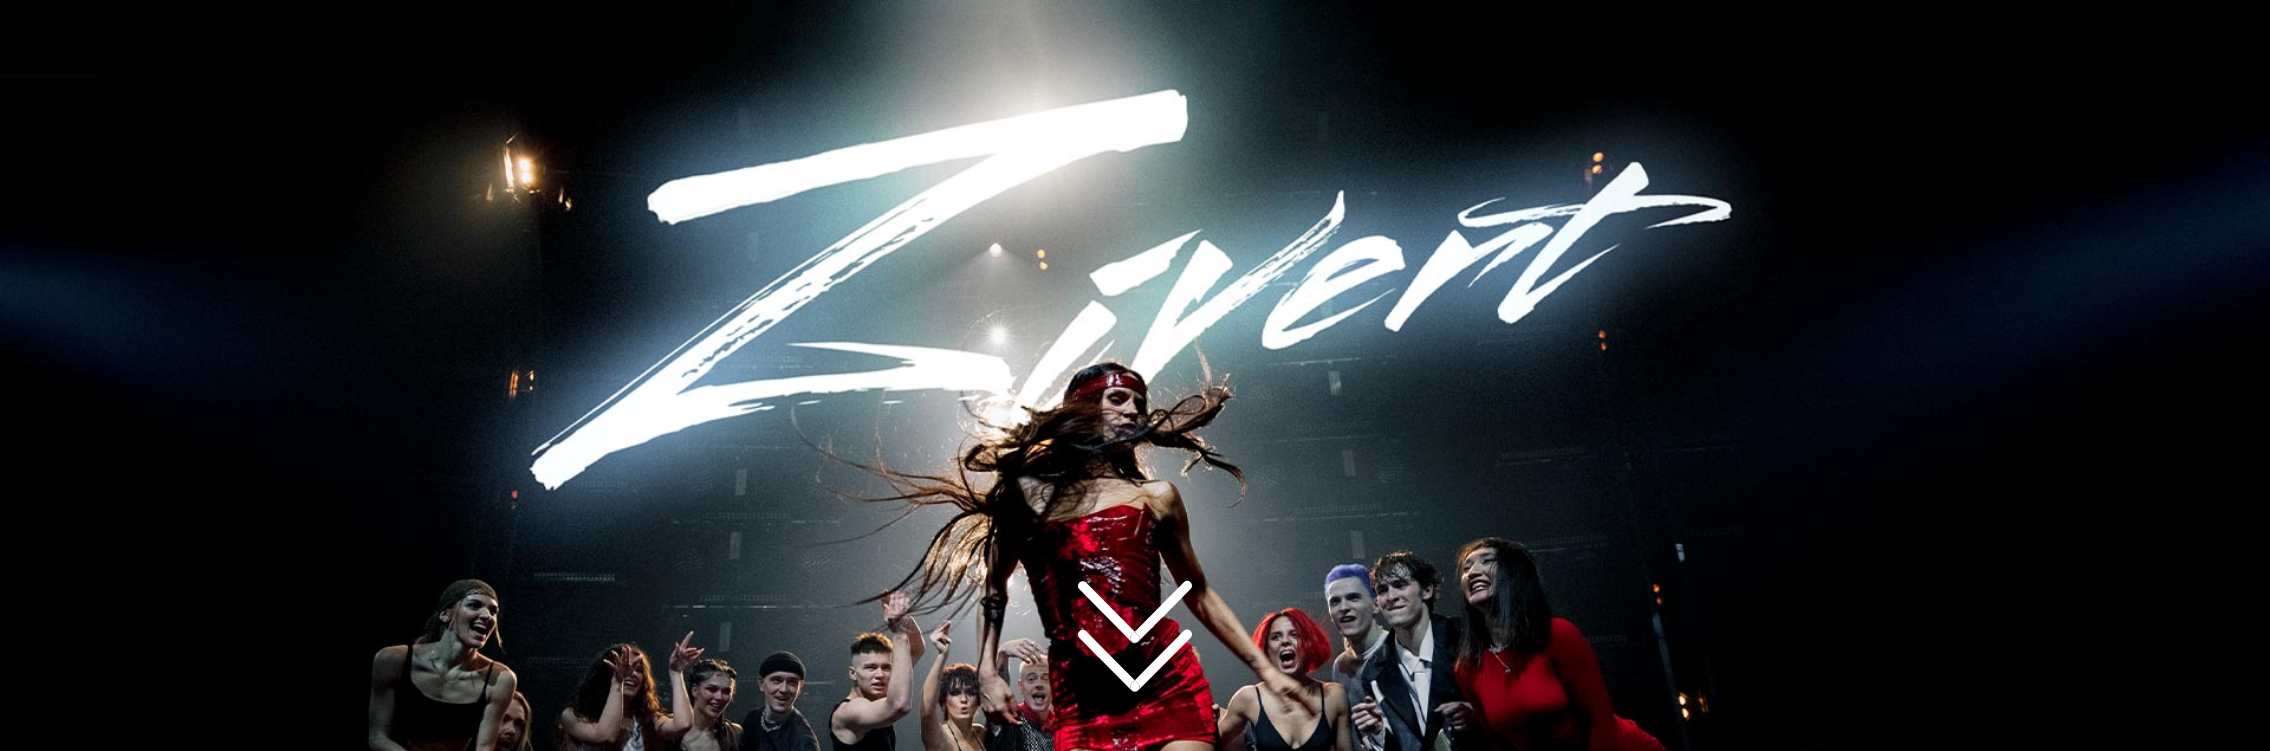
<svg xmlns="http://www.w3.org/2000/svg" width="2270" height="751">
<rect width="100%" height="100%" fill="#fff"/>
<image x="0" y="0" width="2270" height="751" href="media/1.png"/>
<image x="1041" y="551" width="188" height="173" href="media/2.png"/>
</svg>
